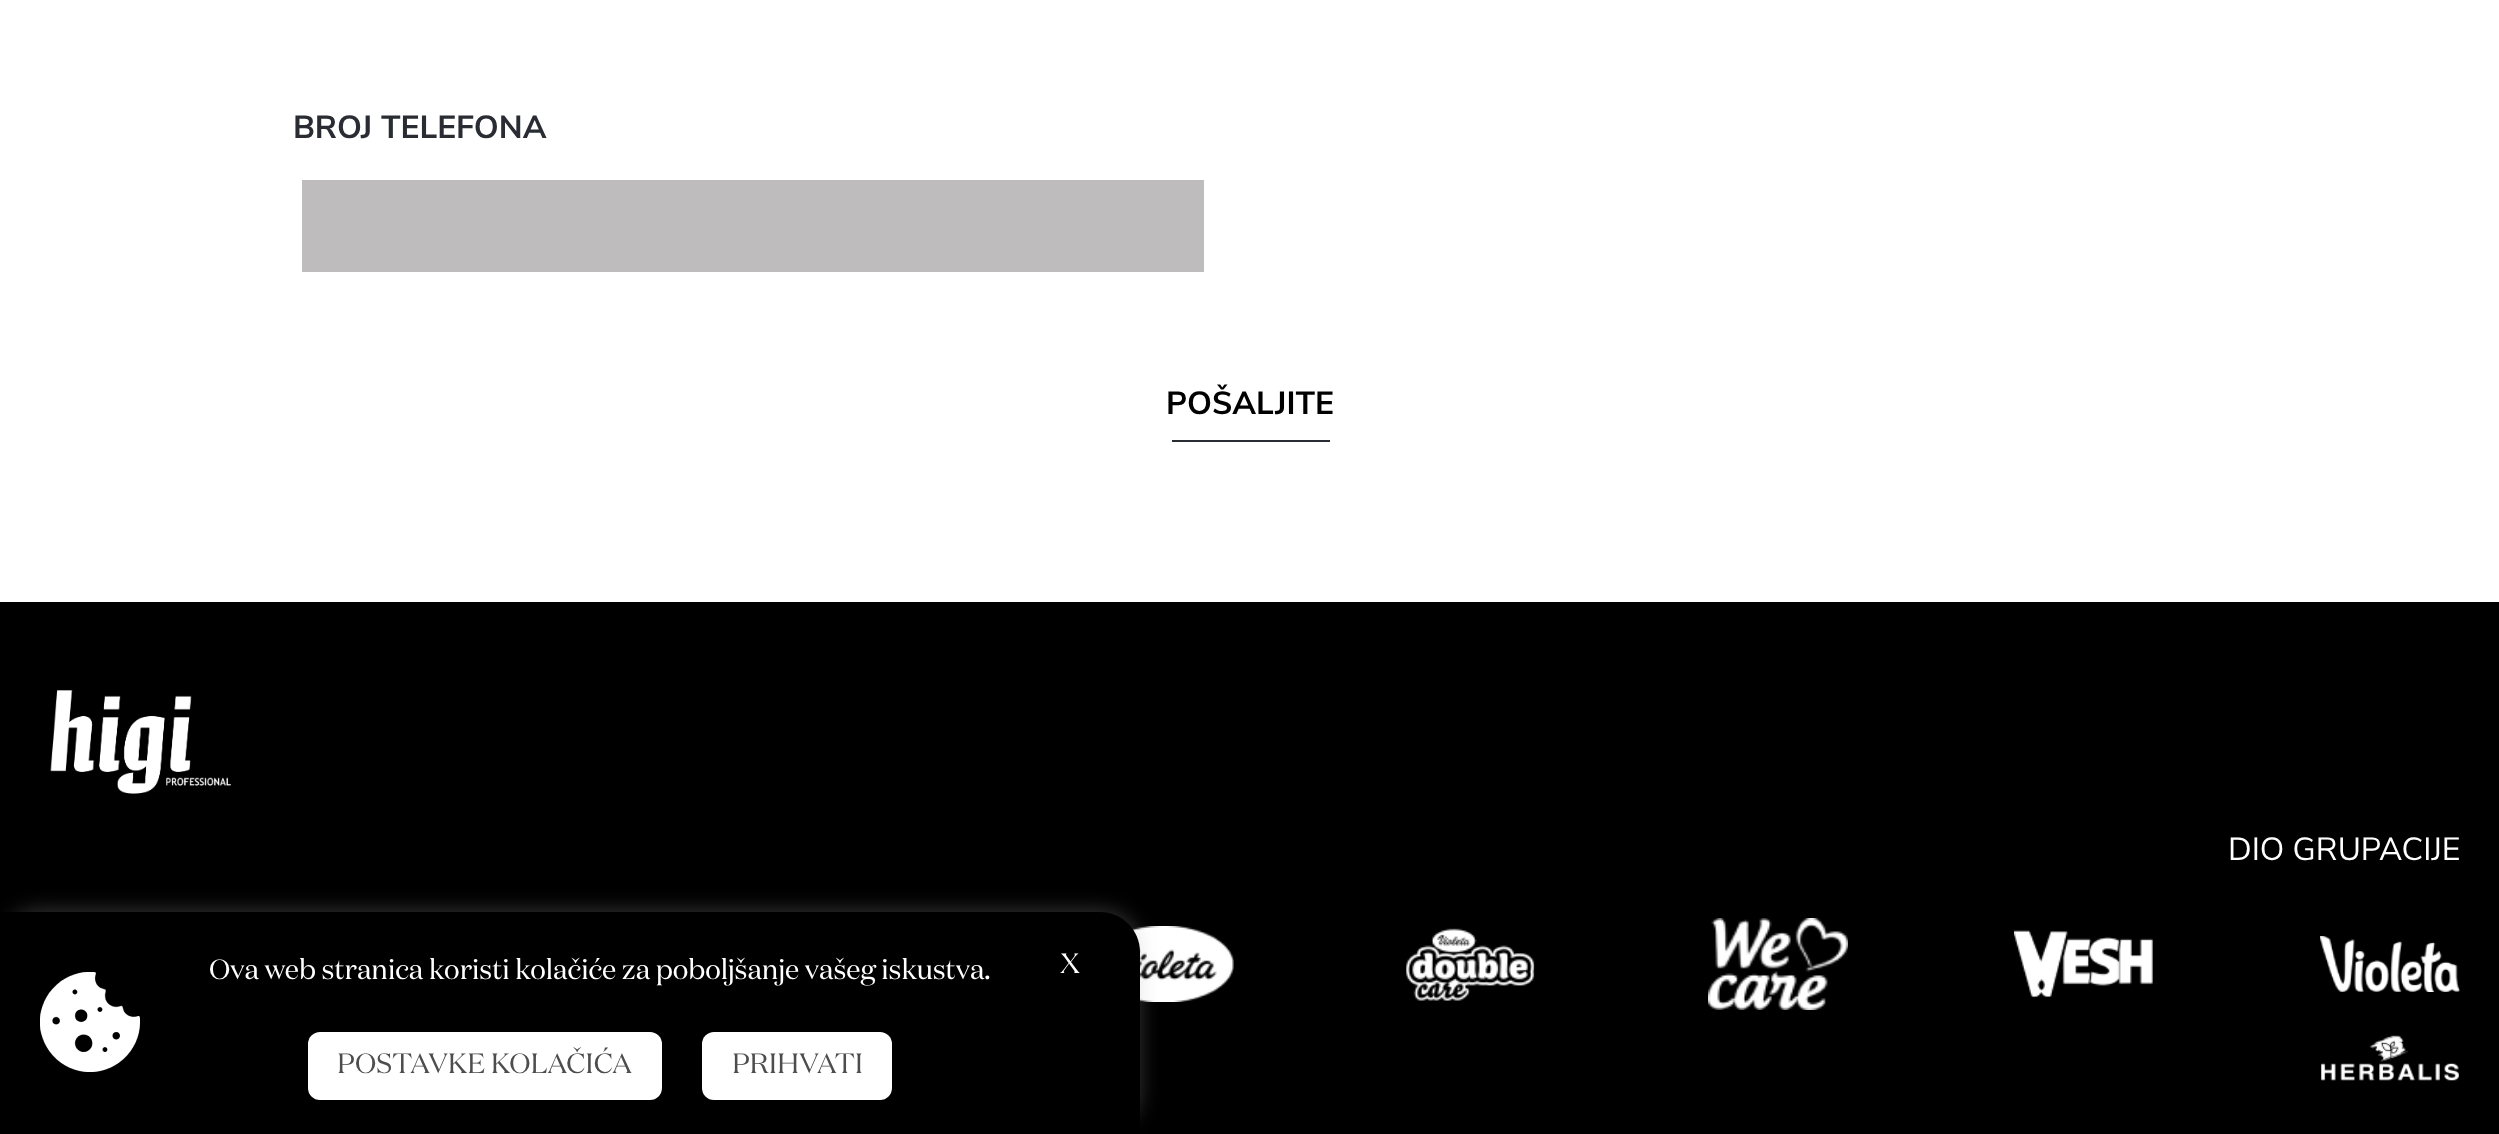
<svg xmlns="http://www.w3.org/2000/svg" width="2499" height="1134">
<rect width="100%" height="100%" fill="#fff"/>
<text x="293" y="138" style="font-family:Nunito Sans;font-size:32px;font-weight:bold;fill:#292d33">BROJ TELEFONA</text>
<rect x="302" y="180" width="902" height="92" fill="#bebcbc"/>
<text x="1166" y="414" style="font-family:Nunito Sans;font-size:32px;font-weight:bold;fill:#000">POŠALJITE</text>
<rect x="1172" y="440" width="158" height="2" fill="#292d33"/>
<rect y="602" width="2499" height="532" fill="#000"/>
<image x="50" y="690" width="181" height="104" href="media/1.png"/>
<text x="2228" y="860" style="font-family:Nunito Sans;font-size:32px;fill:#fff">DIO GRUPACIJE</text>
<image x="1132" y="926" width="102" height="76" href="media/2.png"/>
<image x="1406" y="928" width="129" height="73" href="media/3.png"/>
<image x="1708" y="918" width="140" height="92" href="media/4.png"/>
<image x="2014" y="930" width="139" height="68" href="media/5.png"/>
<image x="2320" y="936" width="140" height="56" href="media/6.png"/>
<image x="2321" y="1035" width="138" height="46" href="media/7.png"/>
<rect y="910" width="1140" height="222" rx="40" fill="#acabab4d" filter="blur(10px)"/>
<path d="M0 912h1100c22 0 40 18 40 40v182h-1140z" fill="#000"/>
<image x="40" y="972" width="100" height="100" href="media/8.png"/>
<text x="209" y="979" style="font-family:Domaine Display;font-size:28px;fill:#fff">Ova web stranica koristi kolačiće za poboljšanje vašeg iskustva.</text>
<text x="1060" y="973" style="font-family:Domaine Display;font-size:28px;fill:#fff">X</text>
<rect x="308" y="1032" width="354" height="68" rx="12" fill="#fff"/>
<text x="337" y="1073" style="font-family:Domaine Display;font-size:28px;fill:#4d4d4d">POSTAVKE KOLAČIĆA</text>
<rect x="702" y="1032" width="190" height="68" rx="12" fill="#fff"/>
<text x="732" y="1073" style="font-family:Domaine Display;font-size:28px;fill:#4d4d4d">PRIHVATI</text>
</svg>
